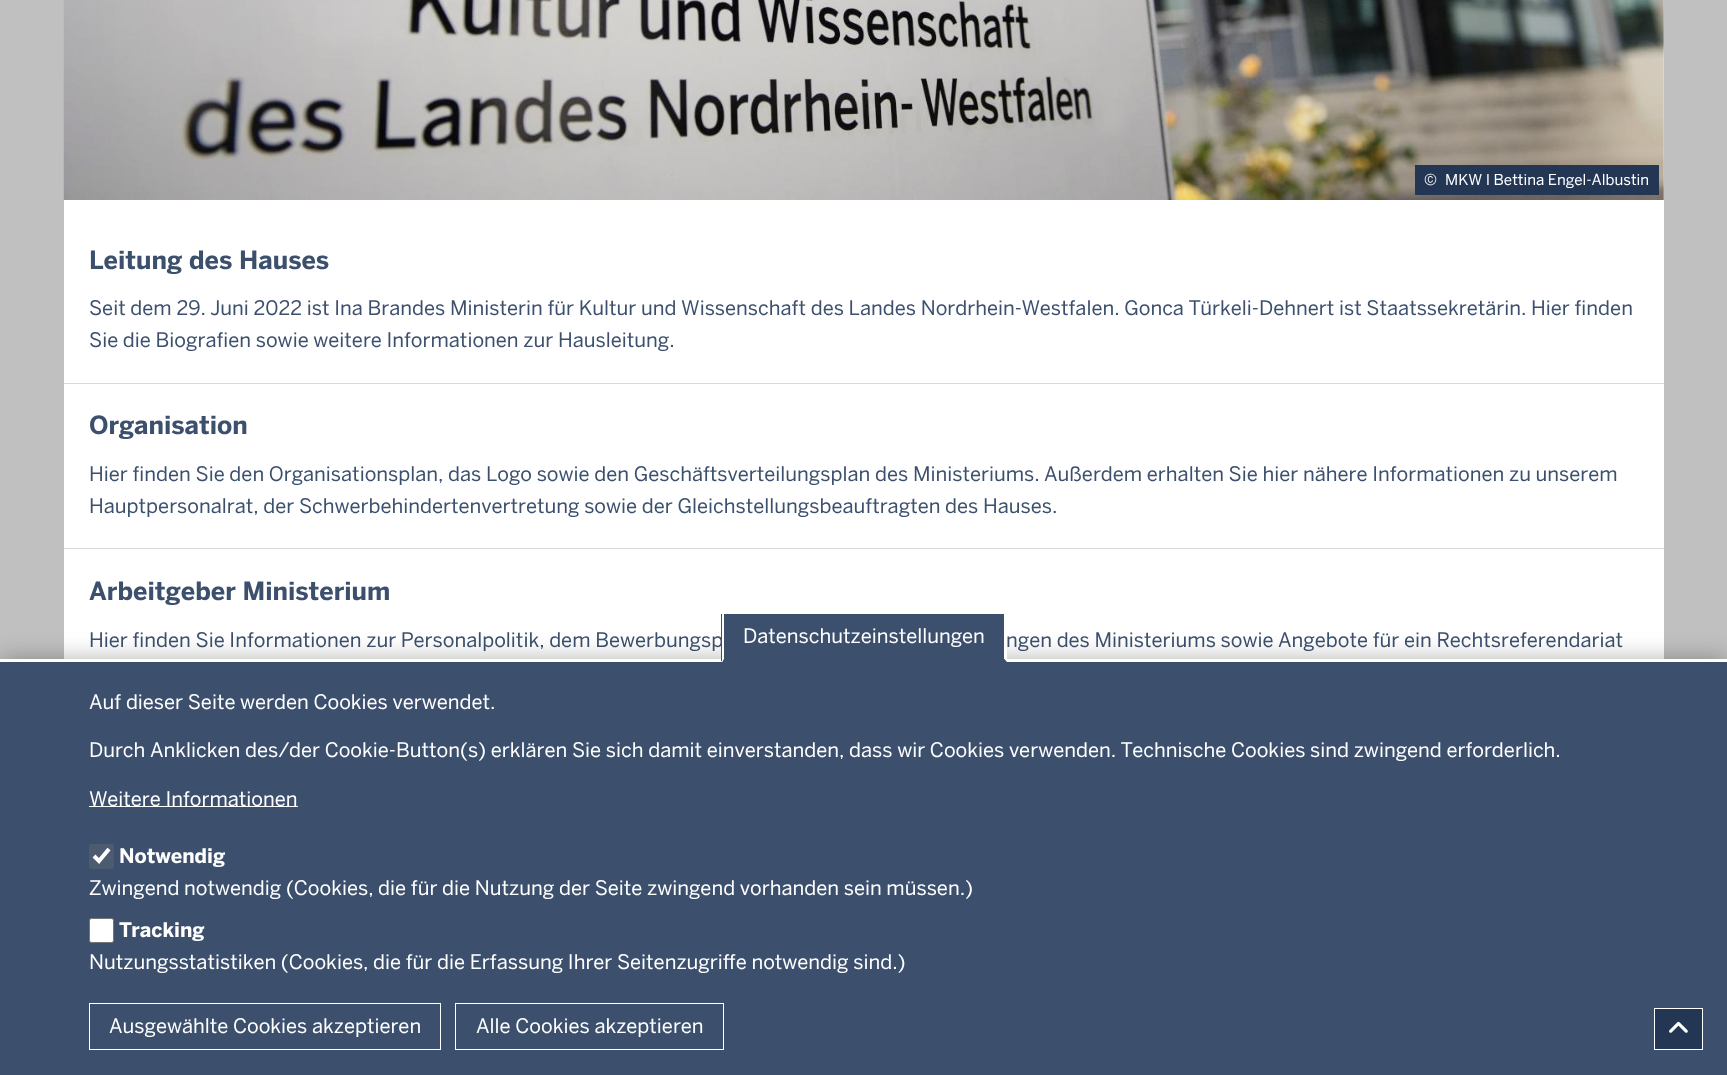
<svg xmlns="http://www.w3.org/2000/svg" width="1727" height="1075">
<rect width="100%" height="100%" fill="#c0c0c0"/>
<rect x="64" width="1600" height="659" fill="#fff"/>
<image x="63" y="0" width="1601" height="200" href="media/1.png"/>
<rect x="1415" y="165" width="244" height="30" fill="#233755"/>
<text x="1424" y="185" style="font-family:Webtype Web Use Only;font-size:15px;fill:#fff">©</text>
<text x="1445" y="185" style="font-family:Webtype Web Use Only;font-size:15px;fill:#fff">MKW I Bettina Engel-Albustin</text>
<rect x="64" y="383" width="1600" height="1" fill="#d9dada"/>
<text x="89" y="269" style="font-family:Webtype Web Use Only;font-size:25px;font-weight:bold;fill:#3c506e">Leitung des Hauses</text>
<text x="89" y="315" style="font-family:Webtype Web Use Only;font-size:20px;fill:#3c506e">Seit dem 29. Juni 2022 ist Ina Brandes Ministerin für Kultur und Wissenschaft des Landes Nordrhein-Westfalen. Gonca Türkeli-Dehnert ist Staatssekretärin. Hier finden</text>
<text x="89" y="347" style="font-family:Webtype Web Use Only;font-size:20px;fill:#3c506e">Sie die Biografien sowie weitere Informationen zur Hausleitung.</text>
<rect x="64" y="548" width="1600" height="1" fill="#d9dada"/>
<text x="89" y="434" style="font-family:Webtype Web Use Only;font-size:25px;font-weight:bold;fill:#3c506e">Organisation</text>
<text x="89" y="481" style="font-family:Webtype Web Use Only;font-size:20px;fill:#3c506e">Hier finden Sie den Organisationsplan, das Logo sowie den Geschäftsverteilungsplan des Ministeriums. Außerdem erhalten Sie hier nähere Informationen zu unserem</text>
<text x="89" y="513" style="font-family:Webtype Web Use Only;font-size:20px;fill:#3c506e">Hauptpersonalrat, der Schwerbehindertenvertretung sowie der Gleichstellungsbeauftragten des Hauses.</text>
<text x="89" y="600" style="font-family:Webtype Web Use Only;font-size:25px;font-weight:bold;fill:#3c506e">Arbeitgeber Ministerium</text>
<text x="89" y="647" style="font-family:Webtype Web Use Only;font-size:20px;fill:#3c506e">Hier finden Sie Informationen zur Personalpolitik, dem Bewerbungsp</text>
<text x="1006" y="647" style="font-family:Webtype Web Use Only;font-size:20px;fill:#3c506e">ngen des Ministeriums sowie Angebote für ein Rechtsreferendariat</text>
<rect y="659" width="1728" height="416" fill="#0000004d" filter="blur(12.5px)"/>
<rect y="662" width="1727" height="413" fill="#3c506e"/>
<rect x="1654.5" y="1008.5" width="48" height="41" fill="#233755" stroke="#fff"/>
<image x="1669" y="1021" width="19" height="12" href="media/2.png"/>
<rect y="659" width="1727" height="3" fill="#fff"/>
<rect x="721" y="614" width="285" height="47" fill="#3c506e"/>
<path d="M1007 612v50l-3-3v-45z" fill="#fff"/>
<path d="M1007 662h-285l2-3h280z" fill="#3c506e"/>
<path d="M722 662v-50l2 2v45z" fill="#fff"/>
<text x="743" y="643" style="font-family:Webtype Web Use Only;font-size:20px;fill:#fff">Datenschutzeinstellungen</text>
<text x="89" y="709" style="font-family:Webtype Web Use Only;font-size:20px;fill:#fff">Auf dieser Seite werden Cookies verwendet.</text>
<text x="89" y="757" style="font-family:Webtype Web Use Only;font-size:20px;fill:#fff">Durch Anklicken des/der Cookie-Button(s) erklären Sie sich damit einverstanden, dass wir Cookies verwenden. Technische Cookies sind zwingend erforderlich.</text>
<rect x="89" y="806" width="209" height="1" fill="#fff"/>
<text x="89" y="806" style="font-family:Webtype Web Use Only;font-size:20px;fill:#fff">Weitere Informationen</text>
<rect x="89" y="844" width="25" height="25" rx="2.5" fill="#4d5b70"/>
<path d="M94 856l5 5l10-12" fill="none" stroke="#fff" stroke-width="4"/>
<text x="119" y="863" style="font-family:Webtype Web Use Only;font-size:20px;font-weight:bold;fill:#fff">Notwendig</text>
<text x="89" y="895" style="font-family:Webtype Web Use Only;font-size:20px;fill:#fff">Zwingend notwendig (Cookies, die für die Nutzung der Seite zwingend vorhanden sein müssen.)</text>
<rect x="89.5" y="918.5" width="24" height="24" rx="2" fill="#fff" stroke="#767676"/>
<text x="119" y="937" style="font-family:Webtype Web Use Only;font-size:20px;font-weight:bold;fill:#fff">Tracking</text>
<text x="89" y="969" style="font-family:Webtype Web Use Only;font-size:20px;fill:#fff">Nutzungsstatistiken (Cookies, die für die Erfassung Ihrer Seitenzugriffe notwendig sind.)</text>
<rect x="89.5" y="1003.5" width="351" height="46" fill="none" stroke="#fff"/>
<text x="109" y="1033" style="font-family:Webtype Web Use Only;font-size:20px;fill:#fff">Ausgewählte Cookies akzeptieren</text>
<rect x="455.5" y="1003.5" width="268" height="46" fill="none" stroke="#fff"/>
<text x="476" y="1033" style="font-family:Webtype Web Use Only;font-size:20px;fill:#fff">Alle Cookies akzeptieren</text>
</svg>
